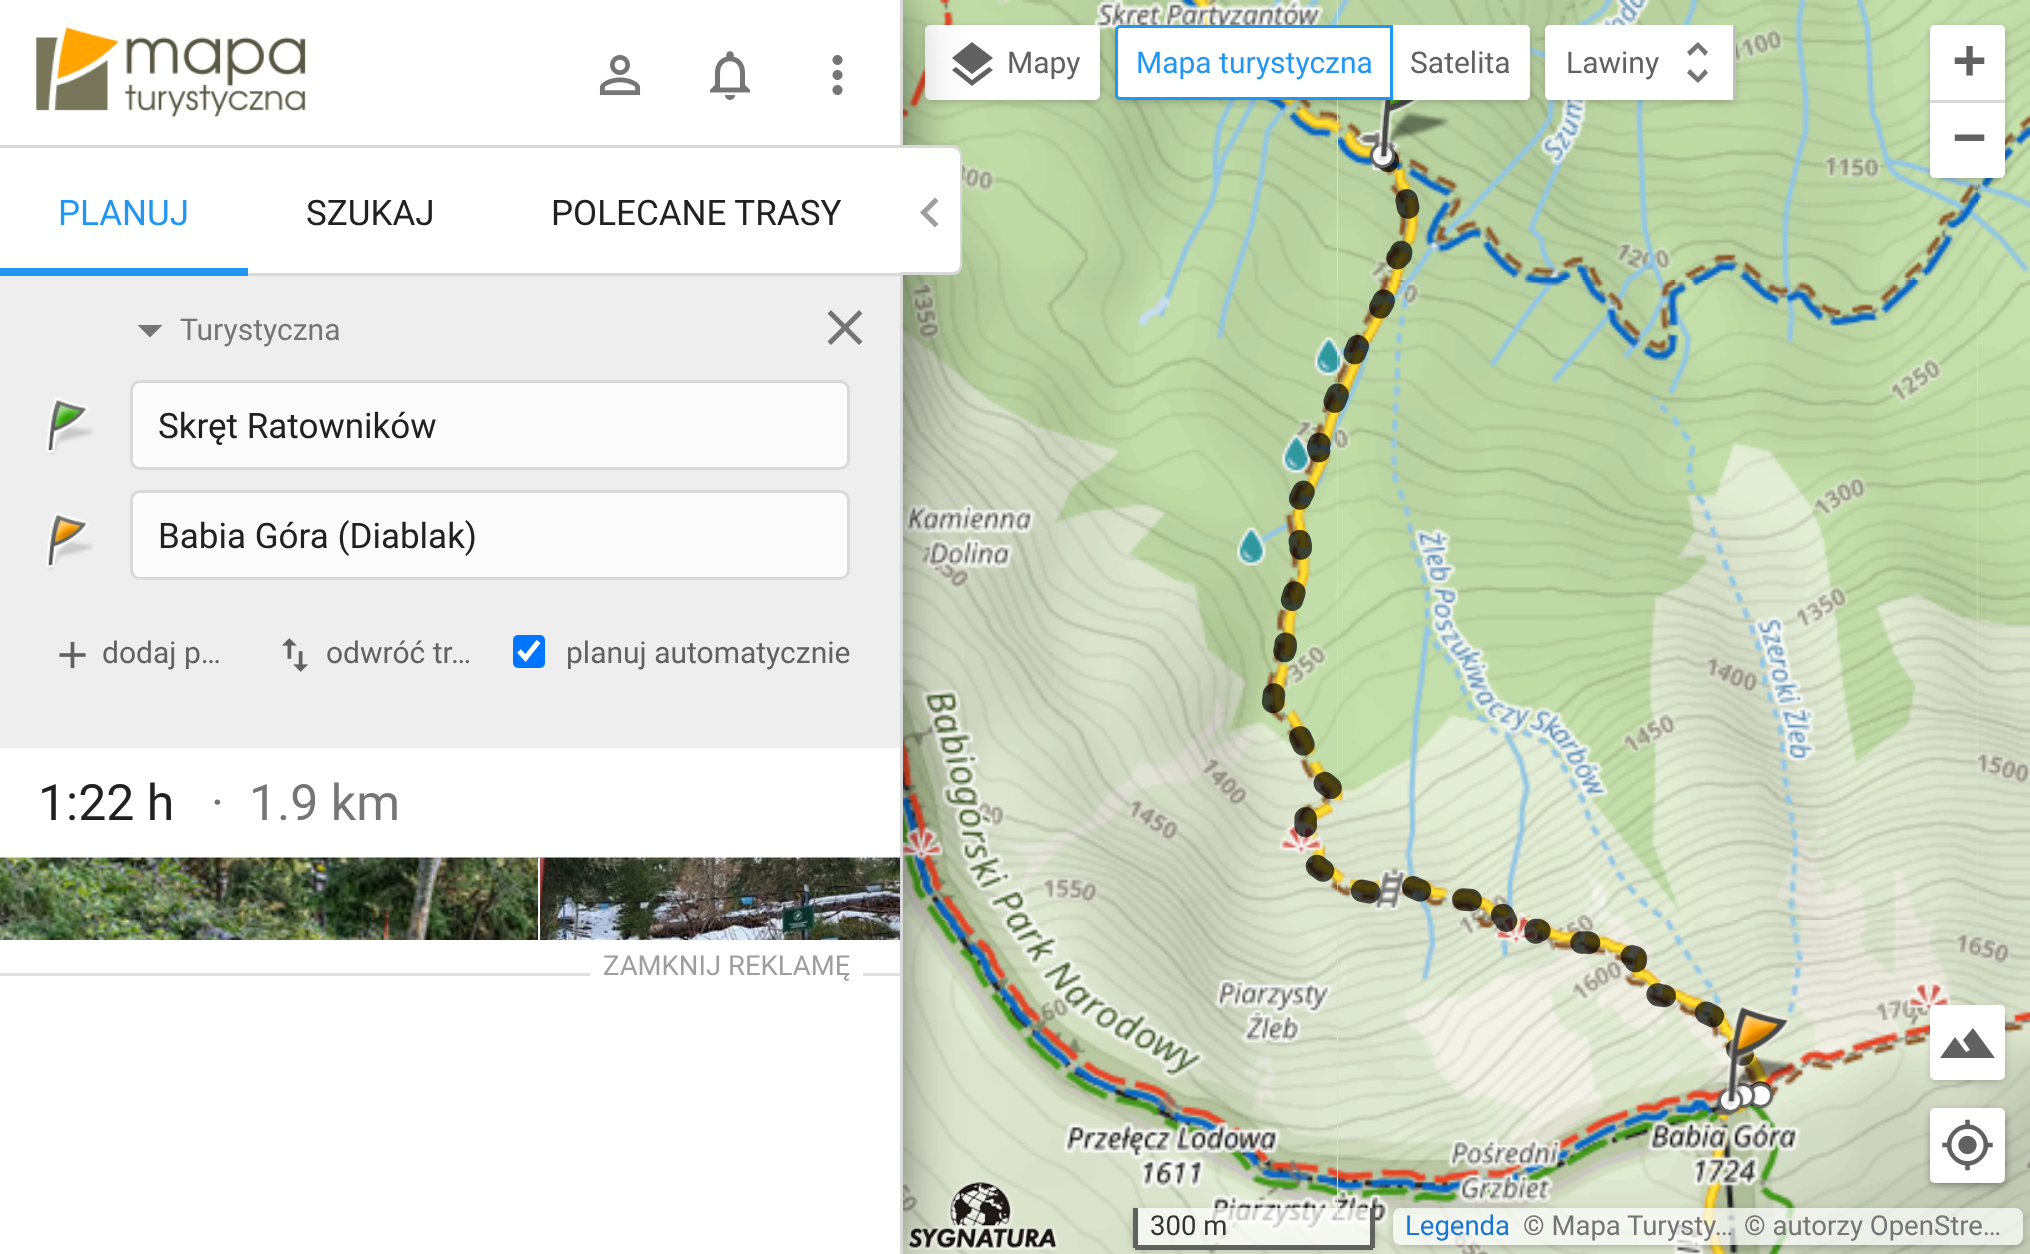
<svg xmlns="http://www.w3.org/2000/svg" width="2030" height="1254">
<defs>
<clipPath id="clip1"><rect x="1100" y="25" width="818" height="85"/></clipPath>
<clipPath id="clip2"><path d="M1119 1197h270v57h-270zm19 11h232c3 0 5 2 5 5v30c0 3-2 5-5 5h-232c-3 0-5-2-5-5v-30c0-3 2-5 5-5z" clip-rule="evenodd"/></clipPath>
<clipPath id="clip3"><path d="M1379 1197h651v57h-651zm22 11h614c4.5 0 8 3.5 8 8v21c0 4.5-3.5 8-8 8h-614c-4.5 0-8-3.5-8-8v-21c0-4.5 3.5-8 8-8z" clip-rule="evenodd"/></clipPath>
</defs>
<rect width="100%" height="100%" fill="#ddd"/>
<image x="903" y="0" width="434" height="280" href="media/11.png"/>
<image x="903" y="280" width="434" height="640" href="media/14.png"/>
<image x="903" y="920" width="434" height="334" href="media/17.png"/>
<rect x="928" y="30" width="170" height="70" rx="2.5" fill="#0000004d" filter="blur(5px)"/>
<rect x="925" y="25" width="175" height="75" rx="5" fill="#fff"/>
<path d="M972 74l-20-16l20-16l21 16zm0 6l17-13l4 3l-21 16l-20-16l4-3z" fill="#616161"/>
<image x="907" y="1180" width="152" height="70" href="media/23.png"/>
<rect x="-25" width="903" height="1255" fill="#000" filter="blur(37.5px)"/>
<rect width="900" height="1254" fill="#fff"/>
<rect x="900" width="3" height="1254" fill="#d9d9d9"/>
<rect y="145" width="900" height="3" fill="#d9d9d9"/>
<image x="36" y="27" width="270" height="90" href="media/1.png"/>
<image x="599" y="55" width="42" height="41" href="media/2.png"/>
<image x="709" y="51" width="42" height="49" href="media/3.png"/>
<image x="832" y="55" width="11" height="40" href="media/4.png"/>
<rect x="248" y="273" width="652" height="3" fill="#d9d9d9"/>
<rect y="268" width="248" height="8" fill="#2196f3"/>
<text x="58" y="225" style="font-family:Roboto;font-size:35px;fill:#2196f3">PLANUJ</text>
<text x="306" y="225" style="font-family:Roboto;font-size:35px;fill:#212121">SZUKAJ</text>
<text x="551" y="225" style="font-family:Roboto;font-size:35px;fill:#212121">POLECANE TRASY</text>
<rect y="276" width="900" height="472" fill="#eee"/>
<path d="M137.5 325h25l-12.5 12.5z" fill="#757575"/>
<text x="180" y="340" style="font-family:Roboto;font-size:30px;fill:#757575">Turystyczna</text>
<path d="M862.5 313.5l-14 14l14 14l-3.5 3.5l-14-14l-14 14l-3.5-3.5l14-14l-14-14l3.5-3.5l14 14l14-14z" fill="#757575"/>
<image x="46" y="397" width="48" height="58" href="media/5.png"/>
<rect x="131.5" y="381.5" width="717" height="87" rx="8.5" fill="#fcfcfc" stroke="#d9d9d9" stroke-width="3"/>
<text x="158" y="438" style="font-family:Roboto;font-size:35px;fill:#212121">Skręt Ratowników</text>
<rect x="131.5" y="491.5" width="717" height="87" rx="8.5" fill="#fcfcfc" stroke="#d9d9d9" stroke-width="3"/>
<text x="158" y="548" style="font-family:Roboto;font-size:35px;fill:#212121">Babia Góra (Diablak)</text>
<image x="46" y="512" width="48" height="58" href="media/6.png"/>
<image x="59" y="641" width="27" height="28" href="media/7.png"/>
<text x="102" y="663" style="font-family:Roboto;font-size:30px;fill:#616161">dodaj p…</text>
<image x="282" y="638" width="26" height="34" href="media/8.png"/>
<text x="326" y="663" style="font-family:Roboto;font-size:30px;fill:#616161">odwróć tr…</text>
<rect x="513" y="635" width="32" height="33" rx="5" fill="#0075ff"/>
<path d="M519 651l6.5 7l13-16.5" fill="none" stroke="#fff" stroke-width="5.2"/>
<text x="566" y="663" style="font-family:Roboto;font-size:30px;fill:#616161">planuj automatycznie</text>
<text x="38" y="820" style="font-family:Roboto;font-size:50px;fill:#212121">1:22 h</text>
<text x="211" y="820" style="font-family:Roboto;font-size:50px;fill:#757575">·</text>
<text x="249" y="820" style="font-family:Roboto;font-size:50px;fill:#757575">1.9 km</text>
<image x="0" y="857" width="540" height="83" href="media/9.png"/>
<rect x="538" y="858" width="2" height="82" fill="#fff"/>
<image x="540" y="857" width="360" height="83" href="media/10.png"/>
<path d="M900 148h52c4.5 0 8 3.5 8 8v109c0 4.5-3.5 8-8 8h-52z" fill="#fff"/>
<path d="M900 145h52c6 0 10 4 10 10v110c0 6-4 10-10 10h-52zm0 3h52c5 0 8 3 8 7v110c0 4-3 7-8 7h-52z" fill="#d9d9d9" fill-rule="evenodd"/>
<path d="M938.5 201l-11.5 11.5l11.5 11.5l-3.5 3.5l-15-15l15-15z" fill="#9e9e9e"/>
<rect y="973" width="900" height="3" fill="#e0e0e0"/>
<rect x="590" y="973" width="273" height="3" fill="#fff"/>
<text x="603" y="975" style="font-family:Roboto;font-size:27.5px;fill:#9e9e9e">ZAMKNIJ REKLAMĘ</text>
<image x="1338" y="0" width="640" height="280" href="media/12.png"/>
<image x="1978" y="0" width="52" height="280" href="media/13.png"/>
<image x="1337" y="280" width="641" height="640" href="media/15.png"/>
<image x="1978" y="280" width="52" height="640" href="media/16.png"/>
<image x="1338" y="920" width="640" height="334" href="media/18.png"/>
<image x="1978" y="920" width="52" height="334" href="media/19.png"/>
<image x="1262" y="143" width="510" height="964" href="media/22.png"/>
<rect x="1370" y="143" width="25" height="25" rx="12.5" fill="#00000080" filter="blur(1px)"/>
<circle cx="1382.5" cy="155.5" r="11" fill="#fff" stroke="#666" stroke-width="3"/>
<image x="1377" y="100" width="73" height="62" href="media/20.png"/>
<rect x="1748" y="1083" width="25" height="25" rx="12.5" fill="#00000080" filter="blur(1px)"/>
<circle cx="1760.5" cy="1095.5" r="11" fill="#fff" stroke="#666" stroke-width="3"/>
<rect x="1730" y="1083" width="25" height="25" rx="12.5" fill="#00000080" filter="blur(1px)"/>
<circle cx="1742.5" cy="1095.5" r="11" fill="#fff" stroke="#666" stroke-width="3"/>
<rect x="1718" y="1088" width="25" height="25" rx="12.5" fill="#00000080" filter="blur(1px)"/>
<circle cx="1730.5" cy="1100.5" r="11" fill="#fff" stroke="#666" stroke-width="3"/>
<image x="1724" y="1005" width="73" height="102" href="media/21.png"/>
<text x="1007" y="73" style="font-family:Roboto;font-size:30px;fill:#616161">Mapy</text>
<g clip-path="url(#clip1)">
<rect x="1393" y="30" width="135" height="70" rx="2.5" fill="#0000004d" filter="blur(5px)"/>
</g>
<path d="M1390 25h135c3 0 5 2 5 5v65c0 3-2 5-5 5h-135z" fill="#fff"/>
<g clip-path="url(#clip1)">
<rect x="1118" y="30" width="272" height="70" rx="2.5" fill="#0000004d" filter="blur(5px)"/>
</g>
<path d="M1120 26.5h271.5v72h-271.5c-2 0-3.5-1.5-3.5-3.5v-65c0-2 1.5-3.5 3.5-3.5z" fill="#fff" stroke="#2196f3" stroke-width="3"/>
<text x="1136" y="73" style="font-family:Roboto;font-size:30px;fill:#2196f3">Mapa turystyczna</text>
<text x="1410" y="73" style="font-family:Roboto;font-size:30px;fill:#616161">Satelita</text>
<g clip-path="url(#clip1)">
<rect x="1548" y="30" width="185" height="70" rx="2.5" fill="#0000004d" filter="blur(5px)"/>
</g>
<path d="M1550 25h185v75h-185c-3 0-5-2-5-5v-65c0-3 2-5 5-5z" fill="#fff"/>
<text x="1566" y="73" style="font-family:Roboto;font-size:30px;fill:#616161">Lawiny</text>
<path d="M1698 77l7-8l3 4l-10 10l-11-10l3-4zm0-29l-8 8l-3-4l11-10l10 10l-3 4z" fill="#757575"/>
<rect x="1733" y="25" width="3" height="75" fill="#c0c0c0"/>
<rect x="1933" y="30" width="70" height="148" rx="2.5" fill="#0000004d" filter="blur(5px)"/>
<path d="M1935 25h65c3 0 5 2 5 5v73h-75v-73c0-3 2-5 5-5z" fill="#fff"/>
<rect x="1930" y="100" width="75" height="3" fill="#d9d9d9"/>
<text x="1953" y="78" style="font-family:DejaVu Sans Mono;font-size:55px;font-weight:bold;fill:#616161">+</text>
<path d="M1930 103h75v70c0 3-2 5-5 5h-65c-3 0-5-2-5-5z" fill="#fff"/>
<text x="1953" y="155" style="font-family:DejaVu Sans Mono;font-size:55px;font-weight:bold;fill:#616161">−</text>
<rect x="1933" y="1113" width="70" height="70" rx="2.5" fill="#0000004d" filter="blur(5px)"/>
<rect x="1933" y="1113" width="70" height="70" rx="2.5" fill="#0000004d" filter="blur(5px)"/>
<rect x="1930" y="1108" width="75" height="75" rx="5" fill="#fff"/>
<image x="1942" y="1119" width="51" height="52" href="media/24.png"/>
<g clip-path="url(#clip2)">
<rect x="1135" y="1213" width="238" height="35" rx="2.5" fill="#0000004d" filter="blur(5px)"/>
</g>
<path d="M1133 1208h242v37c0 3-2 5-5 5h-232c-3 0-5-2-5-5z" fill="#ffffffb3"/>
<rect x="1370" y="1208" width="5" height="40" fill="#616161"/>
<rect x="1135" y="1245" width="238" height="5" fill="#616161"/>
<rect x="1133" y="1208" width="5" height="40" fill="#616161"/>
<text x="1150" y="1235" style="font-family:Roboto;font-size:27.5px;fill:#333">300 m</text>
<g clip-path="url(#clip3)">
<rect x="1395" y="1213" width="625" height="32" rx="5" fill="#0000004d" filter="blur(5px)"/>
</g>
<rect x="1393" y="1208" width="630" height="37" rx="8" fill="#ffffffb3"/>
<text x="1405" y="1235" style="font-family:Roboto;font-size:27.5px;fill:#1976d2">Legenda</text>
<text x="1523" y="1235" style="font-family:Roboto;font-size:27.5px;fill:#757575">© Mapa Turysty…</text>
<text x="1744" y="1235" style="font-family:Roboto;font-size:27.5px;fill:#757575">© autorzy OpenStre…</text>
<rect x="1933" y="1010" width="70" height="70" rx="2.5" fill="#0000004d" filter="blur(5px)"/>
<rect x="1930" y="1005" width="75" height="75" rx="5" fill="#fff"/>
<path d="M1973 1028l22 30h-55l15-21l11 15l4-2l-7-10z" fill="#616161"/>
</svg>
